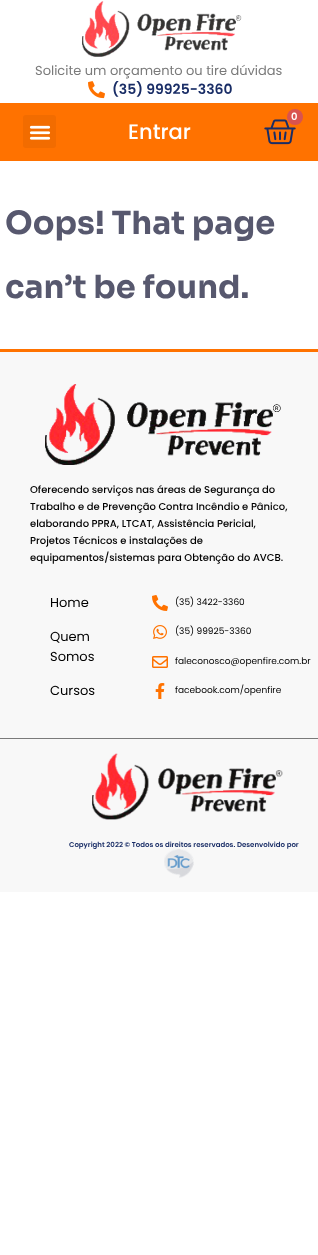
<svg xmlns="http://www.w3.org/2000/svg" width="318" height="1255">
<rect width="100%" height="100%" fill="#fff"/>
<image x="82" y="1" width="160" height="56" href="media/1.png"/>
<text x="35" y="75" style="font-family:Poppins;font-size:13px;fill:#7a7a7a">Solicite um orçamento ou tire dúvidas</text>
<image x="88" y="81" width="17" height="18" href="media/2.png"/>
<text x="112" y="94" style="font-family:Poppins;font-size:14px;font-weight:600;fill:#192d66">(35) 99925-3360</text>
<rect y="103" width="318" height="58" fill="#ff7200"/>
<rect x="23" y="115" width="33" height="33" rx="3" fill="#f26c00"/>
<image x="29" y="125" width="22" height="15" href="media/3.png"/>
<text x="128" y="139" style="font-family:Poppins;font-size:21px;font-weight:500;fill:#fff">Entrar</text>
<image x="264" y="119" width="32" height="26" href="media/4.png"/>
<circle cx="295" cy="117" r="8" fill="#d9534f"/>
<text x="291" y="120" style="font-family:Poppins;font-size:10px;font-weight:600;fill:#fff">0</text>
<text x="5" y="234" style="font-family:Sora;font-size:32px;font-weight:bold;fill:#57586e">Oops! That page</text>
<text x="5" y="298" style="font-family:Sora;font-size:32px;font-weight:bold;fill:#57586e">can’t be found.</text>
<rect y="352" width="318" height="386" fill="#f8f8f8"/>
<rect y="349" width="318" height="3" fill="#ff7200"/>
<image x="45" y="384" width="236" height="81" href="media/5.png"/>
<text x="30" y="493" style="font-family:Poppins;font-size:10px;font-weight:500;fill:#000">Oferecendo serviços nas áreas de Segurança do</text>
<text x="30" y="510" style="font-family:Poppins;font-size:10px;font-weight:500;fill:#000">Trabalho e de Prevenção Contra Incêndio e Pânico,</text>
<text x="30" y="527" style="font-family:Poppins;font-size:10px;font-weight:500;fill:#000">elaborando PPRA, LTCAT, Assistência Pericial,</text>
<text x="30" y="544" style="font-family:Poppins;font-size:10px;font-weight:500;fill:#000">Projetos Técnicos e instalações de</text>
<text x="30" y="561" style="font-family:Poppins;font-size:10px;font-weight:500;fill:#000">equipamentos/sistemas para Obtenção do AVCB.</text>
<text x="50" y="607" style="font-family:Poppins;font-size:13px;fill:#000">Home</text>
<text x="50" y="641" style="font-family:Poppins;font-size:13px;fill:#000">Quem</text>
<text x="50" y="661" style="font-family:Poppins;font-size:13px;fill:#000">Somos</text>
<text x="50" y="695" style="font-family:Poppins;font-size:13px;fill:#000">Cursos</text>
<image x="152" y="595" width="16" height="16" href="media/6.png"/>
<text x="175" y="605" style="font-family:Poppins;font-size:9px;fill:#000">(35) 3422-3360</text>
<image x="153" y="625" width="14" height="14" href="media/7.png"/>
<text x="175" y="634" style="font-family:Poppins;font-size:9px;fill:#000">(35) 99925-3360</text>
<image x="152" y="656" width="16" height="12" href="media/8.png"/>
<text x="175" y="664" style="font-family:Poppins;font-size:9px;fill:#000">faleconosco@openfire.com.br</text>
<image x="155" y="683" width="10" height="16" href="media/9.png"/>
<text x="175" y="693" style="font-family:Poppins;font-size:9px;fill:#000">facebook.com/openfire</text>
<rect y="739" width="318" height="153" fill="#f8f8f8"/>
<rect y="738" width="318" height="1" fill="#7a7a7a"/>
<image x="92" y="753" width="191" height="67" href="media/10.png"/>
<text x="69" y="847" style="font-family:Poppins;font-size:7px;font-weight:600;fill:#192d66">Copyright 2022 © Todos os direitos reservados. Desenvolvido por</text>
<image x="164" y="849" width="30" height="29" href="media/11.png"/>
</svg>
